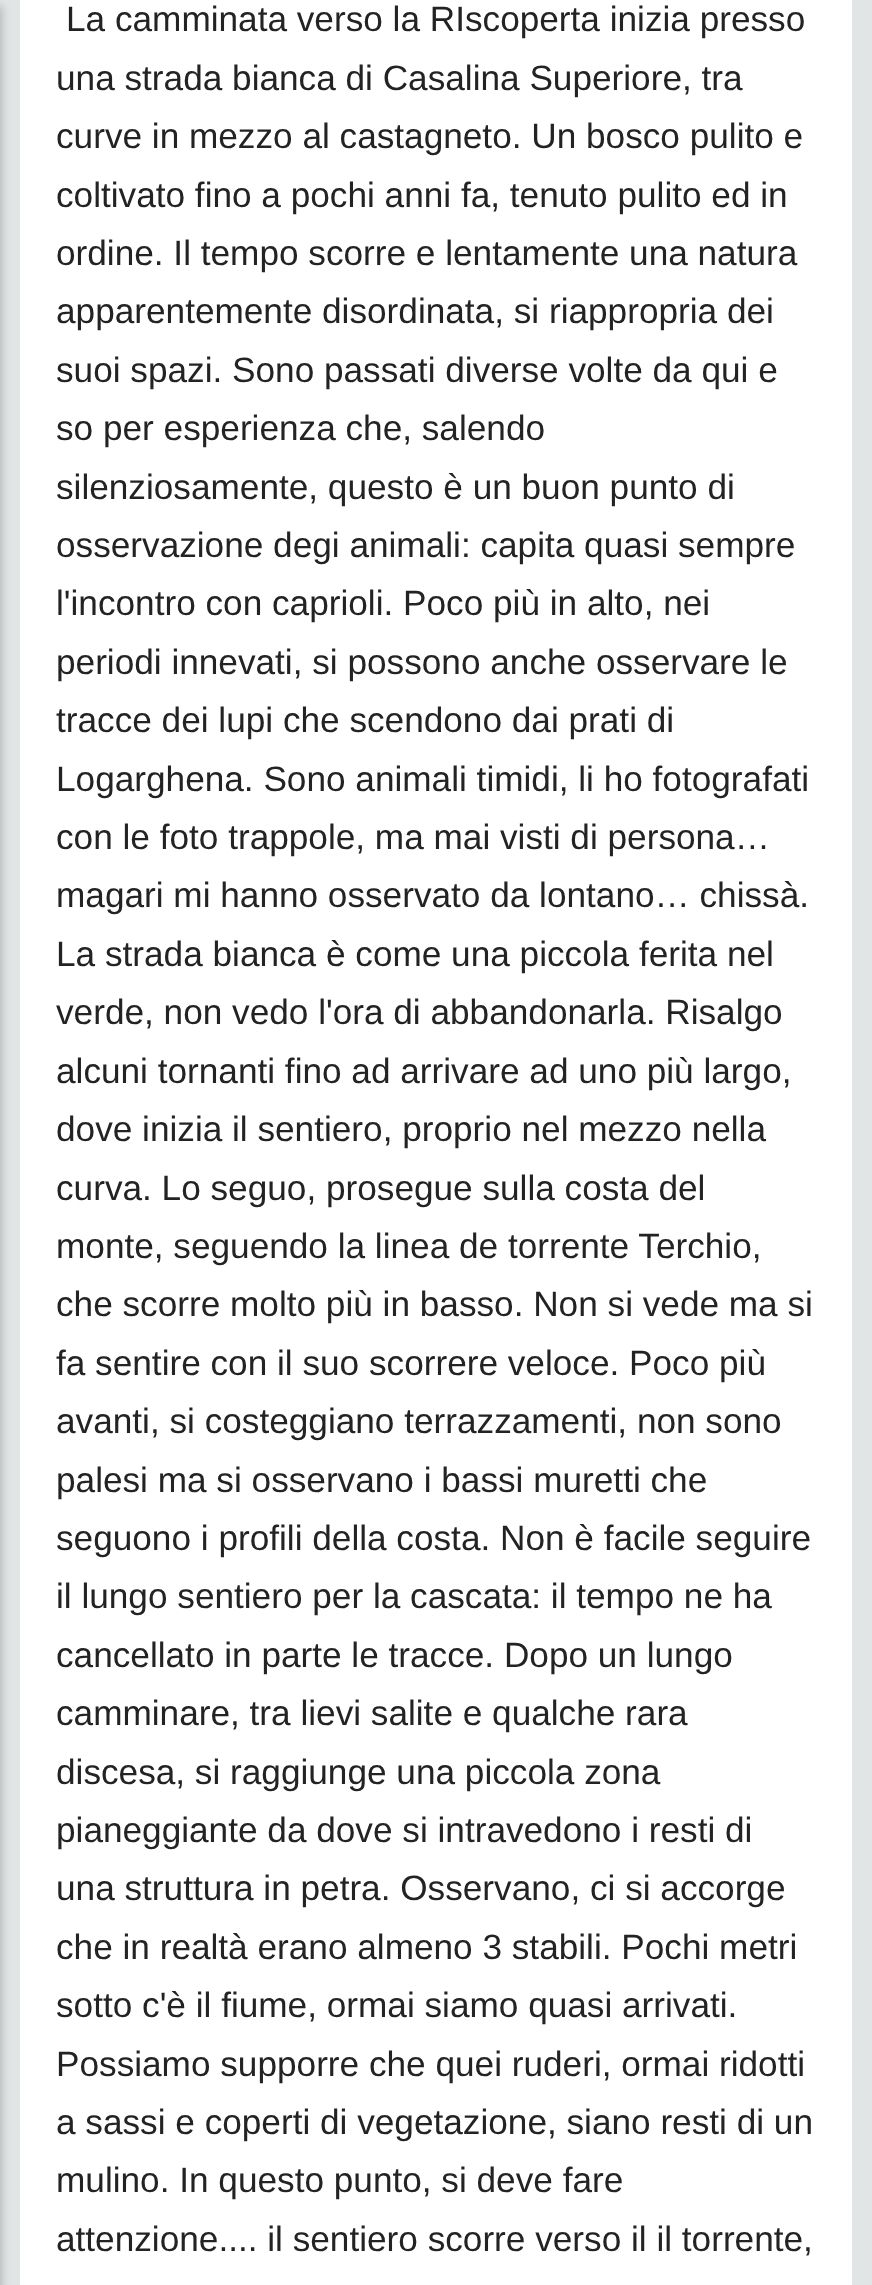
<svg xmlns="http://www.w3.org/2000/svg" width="872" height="2285">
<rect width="100%" height="100%" fill="#e1e5e6"/>
<rect x="-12" y="6" width="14" height="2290" fill="#00000033" filter="blur(4px)"/>
<rect x="20" width="832" height="2285" fill="#fff"/>
<text x="66" y="31" style="font-family:Liberation Sans;font-size:35.2px;fill:#232323">La camminata verso la RIscoperta inizia presso</text>
<text x="56" y="90" style="font-family:Liberation Sans;font-size:35.2px;fill:#232323">una strada bianca di Casalina Superiore, tra</text>
<text x="56" y="148" style="font-family:Liberation Sans;font-size:35.2px;fill:#232323">curve in mezzo al castagneto. Un bosco pulito e</text>
<text x="56" y="207" style="font-family:Liberation Sans;font-size:35.2px;fill:#232323">coltivato fino a pochi anni fa, tenuto pulito ed in</text>
<text x="56" y="265" style="font-family:Liberation Sans;font-size:35.2px;fill:#232323">ordine. Il tempo scorre e lentamente una natura</text>
<text x="56" y="323" style="font-family:Liberation Sans;font-size:35.2px;fill:#232323">apparentemente disordinata, si riappropria dei</text>
<text x="56" y="382" style="font-family:Liberation Sans;font-size:35.2px;fill:#232323">suoi spazi. Sono passati diverse volte da qui e</text>
<text x="56" y="440" style="font-family:Liberation Sans;font-size:35.2px;fill:#232323">so per esperienza che, salendo</text>
<text x="56" y="499" style="font-family:Liberation Sans;font-size:35.2px;fill:#232323">silenziosamente, questo è un buon punto di</text>
<text x="56" y="557" style="font-family:Liberation Sans;font-size:35.2px;fill:#232323">osservazione degi animali: capita quasi sempre</text>
<text x="56" y="615" style="font-family:Liberation Sans;font-size:35.2px;fill:#232323">l'incontro con caprioli. Poco più in alto, nei</text>
<text x="56" y="674" style="font-family:Liberation Sans;font-size:35.2px;fill:#232323">periodi innevati, si possono anche osservare le</text>
<text x="56" y="732" style="font-family:Liberation Sans;font-size:35.2px;fill:#232323">tracce dei lupi che scendono dai prati di</text>
<text x="56" y="791" style="font-family:Liberation Sans;font-size:35.2px;fill:#232323">Logarghena. Sono animali timidi, li ho fotografati</text>
<text x="56" y="849" style="font-family:Liberation Sans;font-size:35.2px;fill:#232323">con le foto trappole, ma mai visti di persona…</text>
<text x="56" y="907" style="font-family:Liberation Sans;font-size:35.2px;fill:#232323">magari mi hanno osservato da lontano… chissà.</text>
<text x="56" y="966" style="font-family:Liberation Sans;font-size:35.2px;fill:#232323">La strada bianca è come una piccola ferita nel</text>
<text x="56" y="1024" style="font-family:Liberation Sans;font-size:35.2px;fill:#232323">verde, non vedo l'ora di abbandonarla. Risalgo</text>
<text x="56" y="1083" style="font-family:Liberation Sans;font-size:35.2px;fill:#232323">alcuni tornanti fino ad arrivare ad uno più largo,</text>
<text x="56" y="1141" style="font-family:Liberation Sans;font-size:35.2px;fill:#232323">dove inizia il sentiero, proprio nel mezzo nella</text>
<text x="56" y="1200" style="font-family:Liberation Sans;font-size:35.2px;fill:#232323">curva. Lo seguo, prosegue sulla costa del</text>
<text x="56" y="1258" style="font-family:Liberation Sans;font-size:35.2px;fill:#232323">monte, seguendo la linea de torrente Terchio,</text>
<text x="56" y="1316" style="font-family:Liberation Sans;font-size:35.2px;fill:#232323">che scorre molto più in basso. Non si vede ma si</text>
<text x="56" y="1375" style="font-family:Liberation Sans;font-size:35.2px;fill:#232323">fa sentire con il suo scorrere veloce. Poco più</text>
<text x="56" y="1433" style="font-family:Liberation Sans;font-size:35.2px;fill:#232323">avanti, si costeggiano terrazzamenti, non sono</text>
<text x="56" y="1492" style="font-family:Liberation Sans;font-size:35.2px;fill:#232323">palesi ma si osservano i bassi muretti che</text>
<text x="56" y="1550" style="font-family:Liberation Sans;font-size:35.2px;fill:#232323">seguono i profili della costa. Non è facile seguire</text>
<text x="56" y="1608" style="font-family:Liberation Sans;font-size:35.2px;fill:#232323">il lungo sentiero per la cascata: il tempo ne ha</text>
<text x="56" y="1667" style="font-family:Liberation Sans;font-size:35.2px;fill:#232323">cancellato in parte le tracce. Dopo un lungo</text>
<text x="56" y="1725" style="font-family:Liberation Sans;font-size:35.2px;fill:#232323">camminare, tra lievi salite e qualche rara</text>
<text x="56" y="1784" style="font-family:Liberation Sans;font-size:35.2px;fill:#232323">discesa, si raggiunge una piccola zona</text>
<text x="56" y="1842" style="font-family:Liberation Sans;font-size:35.2px;fill:#232323">pianeggiante da dove si intravedono i resti di</text>
<text x="56" y="1900" style="font-family:Liberation Sans;font-size:35.2px;fill:#232323">una struttura in petra. Osservano, ci si accorge</text>
<text x="56" y="1959" style="font-family:Liberation Sans;font-size:35.2px;fill:#232323">che in realtà erano almeno 3 stabili. Pochi metri</text>
<text x="56" y="2017" style="font-family:Liberation Sans;font-size:35.2px;fill:#232323">sotto c'è il fiume, ormai siamo quasi arrivati.</text>
<text x="56" y="2076" style="font-family:Liberation Sans;font-size:35.2px;fill:#232323">Possiamo supporre che quei ruderi, ormai ridotti</text>
<text x="56" y="2134" style="font-family:Liberation Sans;font-size:35.2px;fill:#232323">a sassi e coperti di vegetazione, siano resti di un</text>
<text x="56" y="2192" style="font-family:Liberation Sans;font-size:35.2px;fill:#232323">mulino. In questo punto, si deve fare</text>
<text x="56" y="2251" style="font-family:Liberation Sans;font-size:35.2px;fill:#232323">attenzione.... il sentiero scorre verso il il torrente,</text>
</svg>
